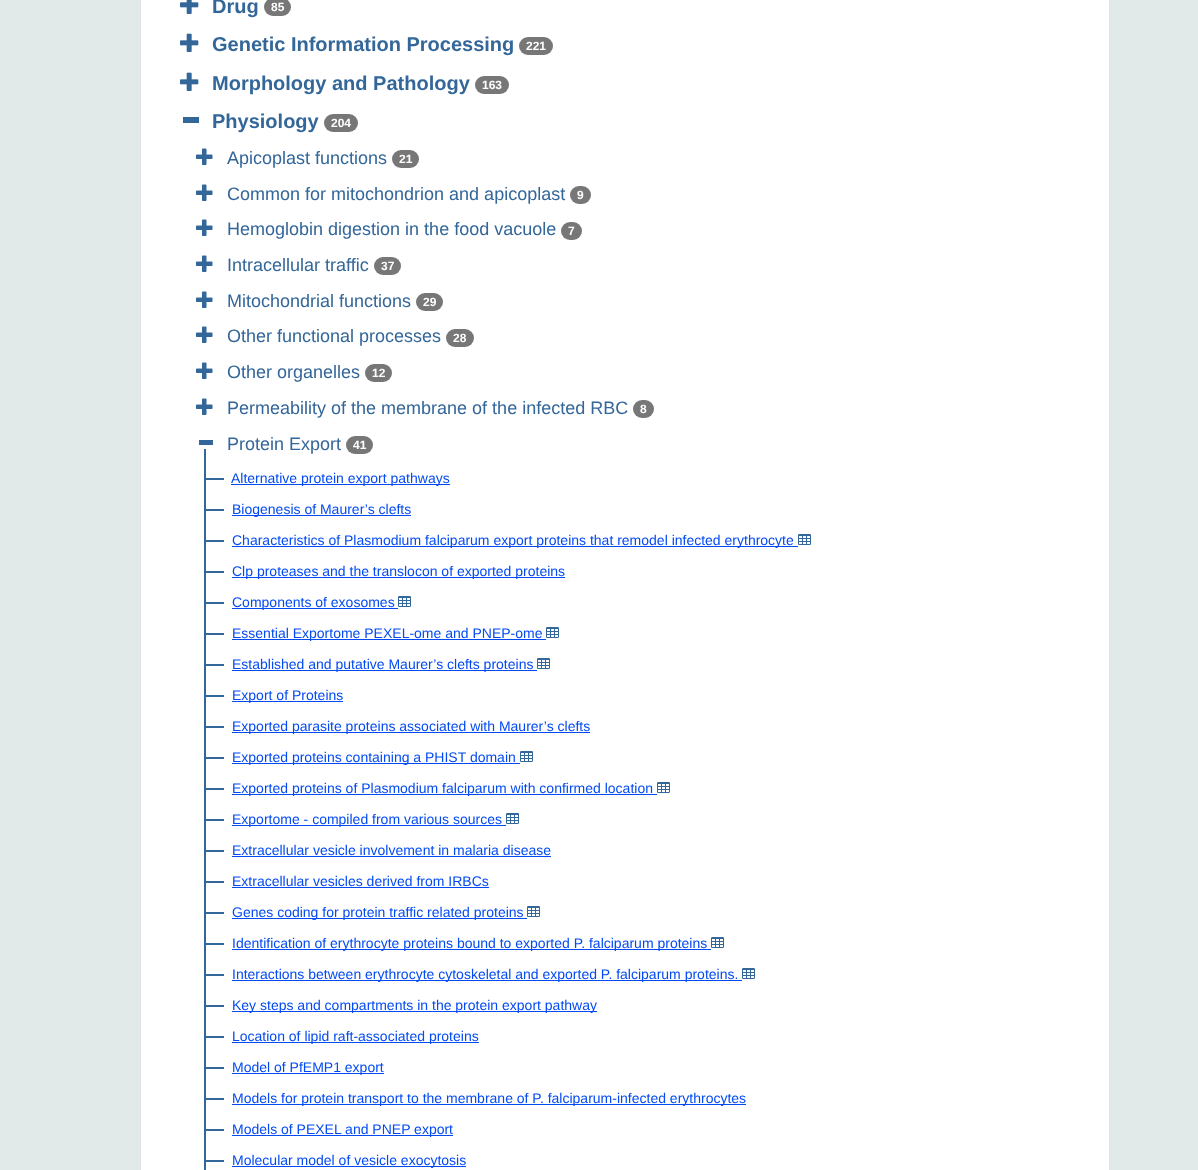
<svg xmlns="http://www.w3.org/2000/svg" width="1198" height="1170">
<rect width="100%" height="100%" fill="#e1e9e9"/>
<rect x="140.5" y="-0.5" width="969" height="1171" fill="#fff" stroke="#e3e3e3"/>
<image x="180" y="0" width="19" height="14" href="media/1.png"/>
<text x="212" y="13" style="font-family:Liberation Sans;font-size:20px;font-weight:bold;fill:#369">Drug</text>
<rect x="264" y="-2" width="27" height="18" rx="9" fill="#777"/>
<text x="271" y="11" style="font-family:Liberation Sans;font-size:12px;font-weight:bold;fill:#fff">85</text>
<image x="180" y="33" width="19" height="19" href="media/2.png"/>
<text x="212" y="51" style="font-family:Liberation Sans;font-size:20px;font-weight:bold;fill:#369">Genetic Information Processing</text>
<rect x="519" y="37" width="34" height="18" rx="9" fill="#777"/>
<text x="526" y="50" style="font-family:Liberation Sans;font-size:12px;font-weight:bold;fill:#fff">221</text>
<image x="180" y="72" width="19" height="19" href="media/2.png"/>
<text x="212" y="90" style="font-family:Liberation Sans;font-size:20px;font-weight:bold;fill:#369">Morphology and Pathology</text>
<rect x="475" y="76" width="34" height="18" rx="9" fill="#777"/>
<text x="482" y="89" style="font-family:Liberation Sans;font-size:12px;font-weight:bold;fill:#fff">163</text>
<rect x="183" y="117" width="16" height="6" fill="#369"/>
<text x="212" y="128" style="font-family:Liberation Sans;font-size:20px;font-weight:bold;fill:#369">Physiology</text>
<rect x="324" y="114" width="34" height="18" rx="9" fill="#777"/>
<text x="331" y="127" style="font-family:Liberation Sans;font-size:12px;font-weight:bold;fill:#fff">204</text>
<image x="196" y="148" width="17" height="17" href="media/3.png"/>
<text x="227" y="164" style="font-family:Liberation Sans;font-size:18px;fill:#369">Apicoplast functions</text>
<rect x="392" y="150" width="27" height="18" rx="9" fill="#777"/>
<text x="399" y="163" style="font-family:Liberation Sans;font-size:12px;font-weight:bold;fill:#fff">21</text>
<image x="196" y="184" width="17" height="17" href="media/3.png"/>
<text x="227" y="200" style="font-family:Liberation Sans;font-size:18px;fill:#369">Common for mitochondrion and apicoplast</text>
<rect x="570" y="186" width="21" height="18" rx="9" fill="#777"/>
<text x="577" y="199" style="font-family:Liberation Sans;font-size:12px;font-weight:bold;fill:#fff">9</text>
<image x="196" y="219" width="17" height="17" href="media/3.png"/>
<text x="227" y="235" style="font-family:Liberation Sans;font-size:18px;fill:#369">Hemoglobin digestion in the food vacuole</text>
<rect x="561" y="222" width="21" height="18" rx="9" fill="#777"/>
<text x="568" y="235" style="font-family:Liberation Sans;font-size:12px;font-weight:bold;fill:#fff">7</text>
<image x="196" y="255" width="17" height="17" href="media/3.png"/>
<text x="227" y="271" style="font-family:Liberation Sans;font-size:18px;fill:#369">Intracellular traffic</text>
<rect x="374" y="257" width="27" height="18" rx="9" fill="#777"/>
<text x="381" y="270" style="font-family:Liberation Sans;font-size:12px;font-weight:bold;fill:#fff">37</text>
<image x="196" y="291" width="17" height="17" href="media/3.png"/>
<text x="227" y="307" style="font-family:Liberation Sans;font-size:18px;fill:#369">Mitochondrial functions</text>
<rect x="416" y="293" width="27" height="18" rx="9" fill="#777"/>
<text x="423" y="306" style="font-family:Liberation Sans;font-size:12px;font-weight:bold;fill:#fff">29</text>
<image x="196" y="326" width="17" height="17" href="media/3.png"/>
<text x="227" y="342" style="font-family:Liberation Sans;font-size:18px;fill:#369">Other functional processes</text>
<rect x="446" y="329" width="28" height="18" rx="9" fill="#777"/>
<text x="453" y="342" style="font-family:Liberation Sans;font-size:12px;font-weight:bold;fill:#fff">28</text>
<image x="196" y="362" width="17" height="17" href="media/3.png"/>
<text x="227" y="378" style="font-family:Liberation Sans;font-size:18px;fill:#369">Other organelles</text>
<rect x="365" y="364" width="27" height="18" rx="9" fill="#777"/>
<text x="372" y="377" style="font-family:Liberation Sans;font-size:12px;font-weight:bold;fill:#fff">12</text>
<image x="196" y="398" width="17" height="17" href="media/3.png"/>
<text x="227" y="414" style="font-family:Liberation Sans;font-size:18px;fill:#369">Permeability of the membrane of the infected RBC</text>
<rect x="633" y="400" width="21" height="18" rx="9" fill="#777"/>
<text x="640" y="413" style="font-family:Liberation Sans;font-size:12px;font-weight:bold;fill:#fff">8</text>
<rect x="199" y="440" width="14" height="5" fill="#369"/>
<text x="227" y="450" style="font-family:Liberation Sans;font-size:18px;fill:#369">Protein Export</text>
<rect x="346" y="436" width="27" height="18" rx="9" fill="#777"/>
<text x="353" y="449" style="font-family:Liberation Sans;font-size:12px;font-weight:bold;fill:#fff">41</text>
<rect x="204" y="478" width="20" height="2" fill="#369"/>
<rect x="204" y="449" width="2" height="31" fill="#369"/>
<rect x="231" y="484" width="219" height="1" fill="#034af3"/>
<text x="231" y="483" style="font-family:Liberation Sans;font-size:14px;fill:#034af3">Alternative protein export pathways</text>
<rect x="204" y="509" width="20" height="2" fill="#369"/>
<rect x="204" y="480" width="2" height="31" fill="#369"/>
<rect x="232" y="515" width="179" height="1" fill="#034af3"/>
<text x="232" y="514" style="font-family:Liberation Sans;font-size:14px;fill:#034af3">Biogenesis of Maurer’s clefts</text>
<rect x="204" y="540" width="20" height="2" fill="#369"/>
<rect x="204" y="511" width="2" height="31" fill="#369"/>
<rect x="232" y="546" width="566" height="1" fill="#034af3"/>
<text x="232" y="545" style="font-family:Liberation Sans;font-size:14px;fill:#034af3">Characteristics of Plasmodium falciparum export proteins that remodel infected erythrocyte</text>
<image x="798" y="534" width="13" height="11" href="media/4.png"/>
<rect x="204" y="571" width="20" height="2" fill="#369"/>
<rect x="204" y="542" width="2" height="31" fill="#369"/>
<rect x="232" y="577" width="333" height="1" fill="#034af3"/>
<text x="232" y="576" style="font-family:Liberation Sans;font-size:14px;fill:#034af3">Clp proteases and the translocon of exported proteins</text>
<rect x="204" y="602" width="20" height="2" fill="#369"/>
<rect x="204" y="573" width="2" height="31" fill="#369"/>
<rect x="232" y="608" width="166" height="1" fill="#034af3"/>
<text x="232" y="607" style="font-family:Liberation Sans;font-size:14px;fill:#034af3">Components of exosomes</text>
<image x="398" y="596" width="13" height="11" href="media/4.png"/>
<rect x="204" y="633" width="20" height="2" fill="#369"/>
<rect x="204" y="604" width="2" height="31" fill="#369"/>
<rect x="232" y="639" width="314" height="1" fill="#034af3"/>
<text x="232" y="638" style="font-family:Liberation Sans;font-size:14px;fill:#034af3">Essential Exportome PEXEL-ome and PNEP-ome</text>
<image x="546" y="627" width="13" height="11" href="media/4.png"/>
<rect x="204" y="664" width="20" height="2" fill="#369"/>
<rect x="204" y="635" width="2" height="31" fill="#369"/>
<rect x="232" y="670" width="305" height="1" fill="#034af3"/>
<text x="232" y="669" style="font-family:Liberation Sans;font-size:14px;fill:#034af3">Established and putative Maurer’s clefts proteins</text>
<image x="537" y="658" width="13" height="11" href="media/4.png"/>
<rect x="204" y="695" width="20" height="2" fill="#369"/>
<rect x="204" y="666" width="2" height="31" fill="#369"/>
<rect x="232" y="701" width="111" height="1" fill="#034af3"/>
<text x="232" y="700" style="font-family:Liberation Sans;font-size:14px;fill:#034af3">Export of Proteins</text>
<rect x="204" y="726" width="20" height="2" fill="#369"/>
<rect x="204" y="697" width="2" height="31" fill="#369"/>
<rect x="232" y="732" width="358" height="1" fill="#034af3"/>
<text x="232" y="731" style="font-family:Liberation Sans;font-size:14px;fill:#034af3">Exported parasite proteins associated with Maurer’s clefts</text>
<rect x="204" y="757" width="20" height="2" fill="#369"/>
<rect x="204" y="728" width="2" height="31" fill="#369"/>
<rect x="232" y="763" width="288" height="1" fill="#034af3"/>
<text x="232" y="762" style="font-family:Liberation Sans;font-size:14px;fill:#034af3">Exported proteins containing a PHIST domain</text>
<image x="520" y="751" width="13" height="11" href="media/4.png"/>
<rect x="204" y="788" width="20" height="2" fill="#369"/>
<rect x="204" y="759" width="2" height="31" fill="#369"/>
<rect x="232" y="794" width="425" height="1" fill="#034af3"/>
<text x="232" y="793" style="font-family:Liberation Sans;font-size:14px;fill:#034af3">Exported proteins of Plasmodium falciparum with confirmed location</text>
<image x="657" y="782" width="13" height="11" href="media/4.png"/>
<rect x="204" y="819" width="20" height="2" fill="#369"/>
<rect x="204" y="790" width="2" height="31" fill="#369"/>
<rect x="232" y="825" width="274" height="1" fill="#034af3"/>
<text x="232" y="824" style="font-family:Liberation Sans;font-size:14px;fill:#034af3">Exportome - compiled from various sources</text>
<image x="506" y="813" width="13" height="11" href="media/4.png"/>
<rect x="204" y="850" width="20" height="2" fill="#369"/>
<rect x="204" y="821" width="2" height="31" fill="#369"/>
<text x="232" y="855" style="font-family:Liberation Sans;font-size:14px;fill:#034af3">Extracellular vesicle involvement in malaria disease</text>
<rect x="232" y="856" width="319" height="1" fill="#034af3"/>
<rect x="204" y="881" width="20" height="2" fill="#369"/>
<rect x="204" y="852" width="2" height="31" fill="#369"/>
<text x="232" y="886" style="font-family:Liberation Sans;font-size:14px;fill:#034af3">Extracellular vesicles derived from IRBCs</text>
<rect x="232" y="887" width="257" height="1" fill="#034af3"/>
<rect x="204" y="912" width="20" height="2" fill="#369"/>
<rect x="204" y="883" width="2" height="31" fill="#369"/>
<rect x="232" y="918" width="295" height="1" fill="#034af3"/>
<text x="232" y="917" style="font-family:Liberation Sans;font-size:14px;fill:#034af3">Genes coding for protein traffic related proteins</text>
<image x="527" y="906" width="13" height="11" href="media/4.png"/>
<rect x="204" y="943" width="20" height="2" fill="#369"/>
<rect x="204" y="914" width="2" height="31" fill="#369"/>
<rect x="232" y="949" width="479" height="1" fill="#034af3"/>
<text x="232" y="948" style="font-family:Liberation Sans;font-size:14px;fill:#034af3">Identification of erythrocyte proteins bound to exported P. falciparum proteins</text>
<image x="711" y="937" width="13" height="11" href="media/4.png"/>
<rect x="204" y="974" width="20" height="2" fill="#369"/>
<rect x="204" y="945" width="2" height="31" fill="#369"/>
<rect x="232" y="980" width="510" height="1" fill="#034af3"/>
<text x="232" y="979" style="font-family:Liberation Sans;font-size:14px;fill:#034af3">Interactions between erythrocyte cytoskeletal and exported P. falciparum proteins.</text>
<image x="742" y="968" width="13" height="11" href="media/4.png"/>
<rect x="204" y="1005" width="20" height="2" fill="#369"/>
<rect x="204" y="976" width="2" height="31" fill="#369"/>
<rect x="232" y="1011" width="365" height="1" fill="#034af3"/>
<text x="232" y="1010" style="font-family:Liberation Sans;font-size:14px;fill:#034af3">Key steps and compartments in the protein export pathway</text>
<rect x="204" y="1036" width="20" height="2" fill="#369"/>
<rect x="204" y="1007" width="2" height="31" fill="#369"/>
<rect x="232" y="1042" width="247" height="1" fill="#034af3"/>
<text x="232" y="1041" style="font-family:Liberation Sans;font-size:14px;fill:#034af3">Location of lipid raft-associated proteins</text>
<rect x="204" y="1067" width="20" height="2" fill="#369"/>
<rect x="204" y="1038" width="2" height="31" fill="#369"/>
<rect x="232" y="1073" width="152" height="1" fill="#034af3"/>
<text x="232" y="1072" style="font-family:Liberation Sans;font-size:14px;fill:#034af3">Model of PfEMP1 export</text>
<rect x="204" y="1098" width="20" height="2" fill="#369"/>
<rect x="204" y="1069" width="2" height="31" fill="#369"/>
<rect x="232" y="1104" width="514" height="1" fill="#034af3"/>
<text x="232" y="1103" style="font-family:Liberation Sans;font-size:14px;fill:#034af3">Models for protein transport to the membrane of P. falciparum-infected erythrocytes</text>
<rect x="204" y="1129" width="20" height="2" fill="#369"/>
<rect x="204" y="1100" width="2" height="31" fill="#369"/>
<rect x="232" y="1135" width="221" height="1" fill="#034af3"/>
<text x="232" y="1134" style="font-family:Liberation Sans;font-size:14px;fill:#034af3">Models of PEXEL and PNEP export</text>
<rect x="204" y="1160" width="20" height="2" fill="#369"/>
<rect x="204" y="1131" width="2" height="39" fill="#369"/>
<rect x="232" y="1166" width="234" height="1" fill="#034af3"/>
<text x="232" y="1165" style="font-family:Liberation Sans;font-size:14px;fill:#034af3">Molecular model of vesicle exocytosis</text>
</svg>
